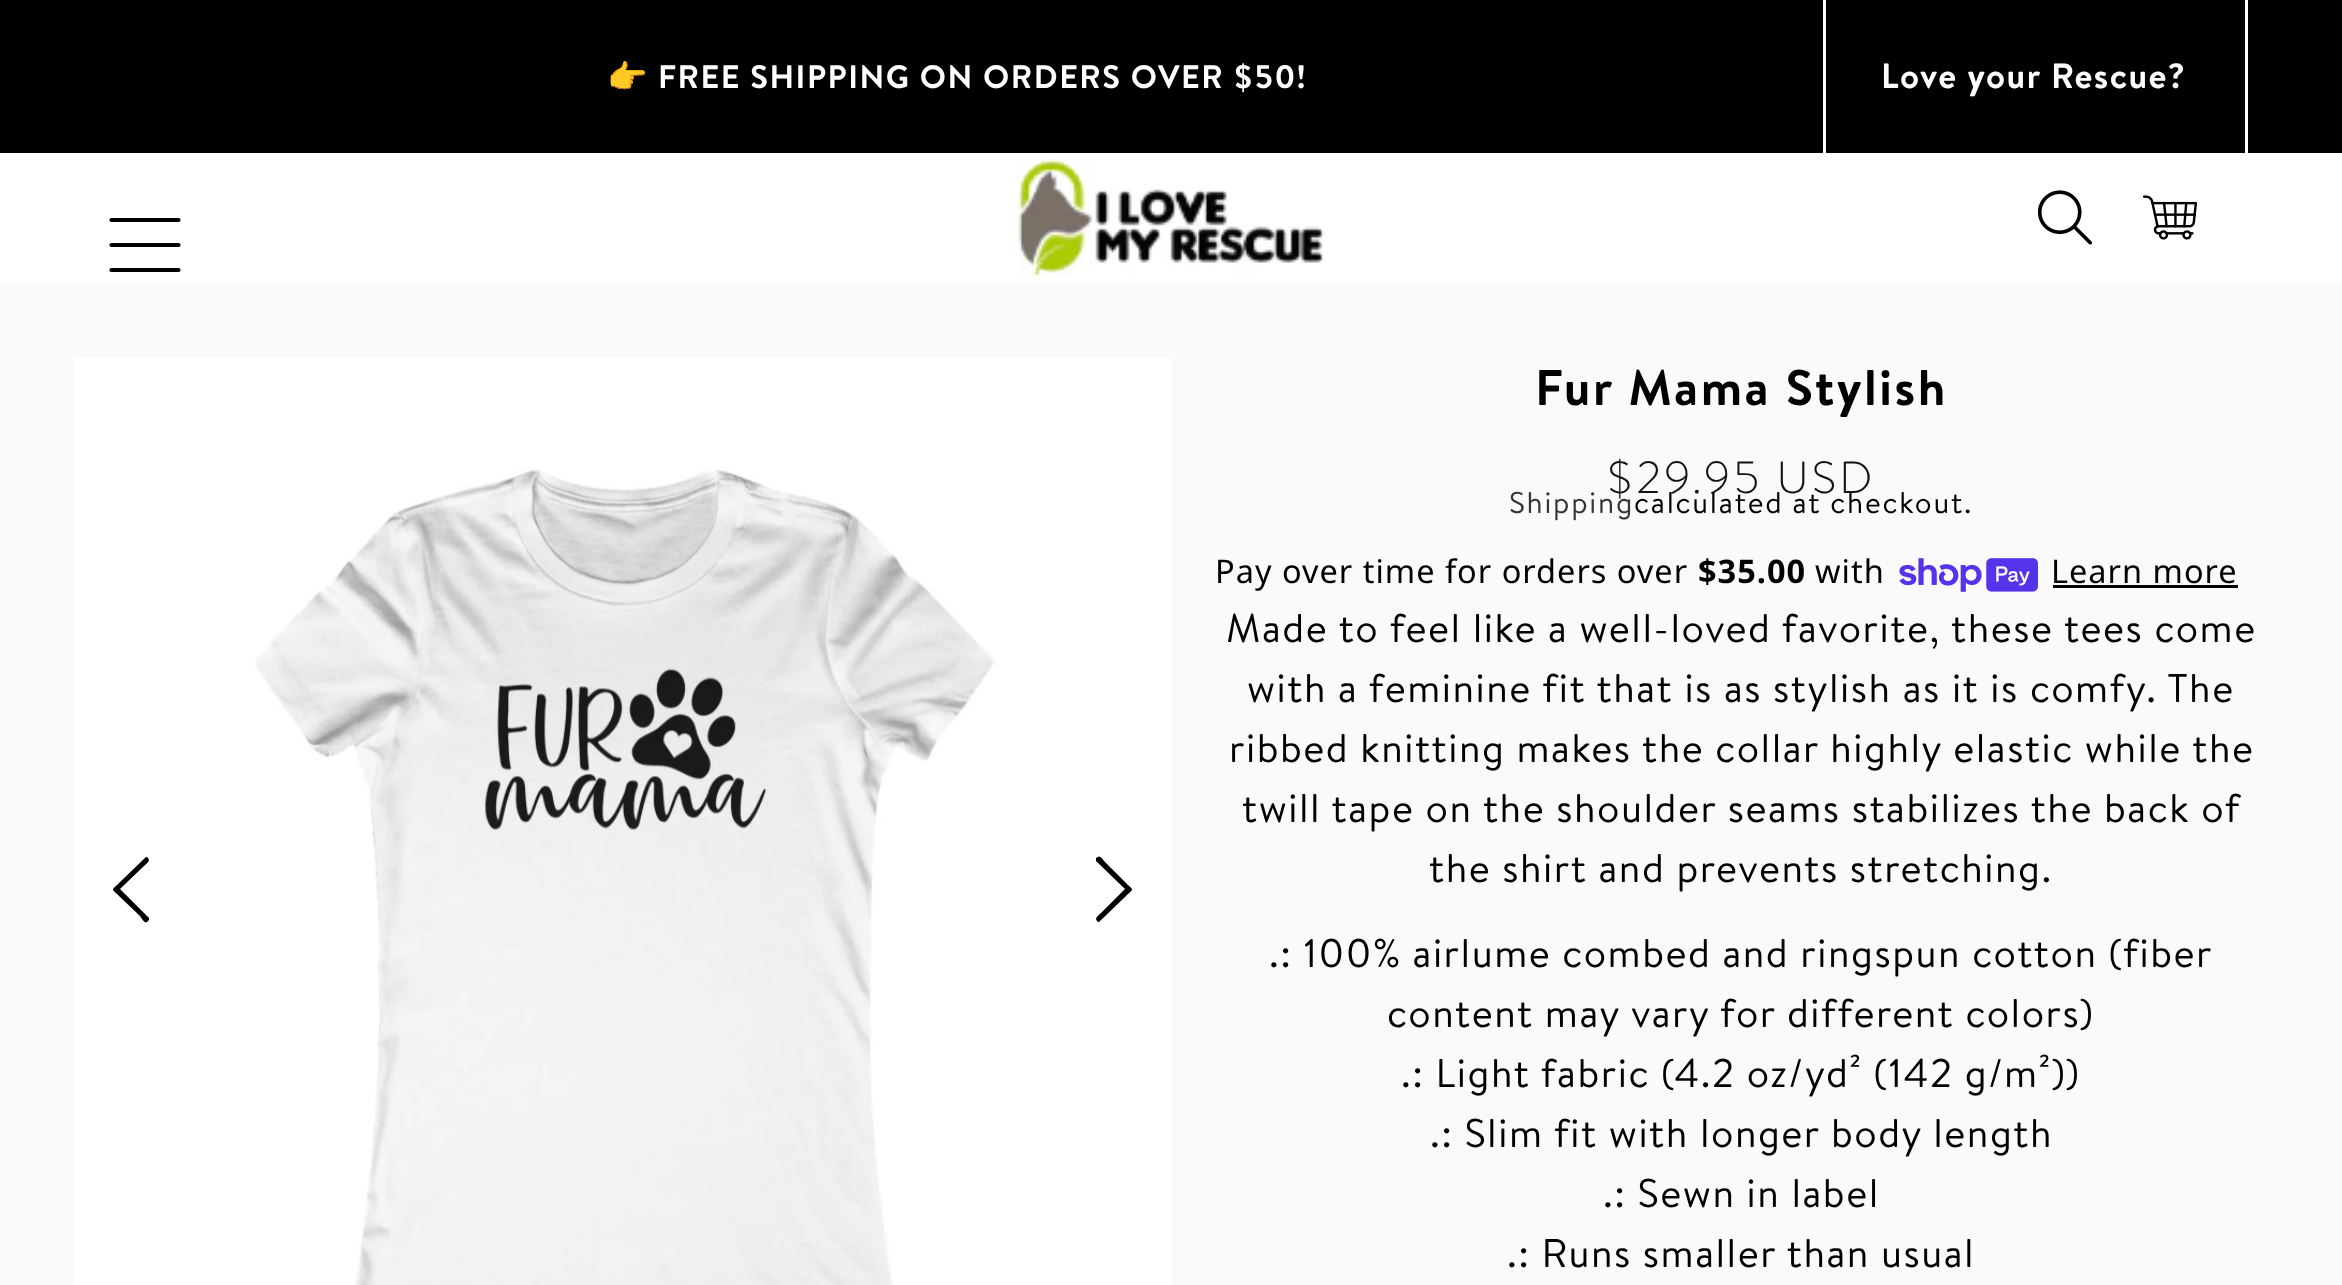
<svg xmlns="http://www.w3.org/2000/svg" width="2342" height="1285">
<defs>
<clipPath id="clip1"><path d="M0 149h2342v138h-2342zm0 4h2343v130h-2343z" clip-rule="evenodd"/></clipPath>
</defs>
<rect width="100%" height="100%" fill="#fff"/>
<rect width="2342" height="153" fill="#000"/>
<text x="607" y="88" style="font-family:Noto Color Emoji;font-size:32.5px;letter-spacing:1.5px;fill:#fff">👉</text>
<text x="658" y="88" style="font-family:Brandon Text;font-size:32.5px;font-weight:bold;letter-spacing:1.5px;fill:#fff">FREE SHIPPING ON ORDERS OVER $50!</text>
<g clip-path="url(#clip1)">
<rect y="153" width="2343" height="130" fill="#00000033" filter="blur(1px)"/>
</g>
<rect x="2245" width="3" height="153" fill="#fff"/>
<rect x="1823" width="3" height="153" fill="#fff"/>
<text x="1881" y="88" style="font-family:Brandon Text;font-size:35px;font-weight:bold;letter-spacing:1.5px;fill:#fff">Love your Rescue?</text>
<path d="M111.5 220h67" fill="none" stroke="#000" stroke-width="4.2" stroke-linecap="round" stroke-linejoin="round"/>
<path d="M111.5 245h67" fill="none" stroke="#000" stroke-width="4.2" stroke-linecap="round" stroke-linejoin="round"/>
<path d="M111.5 270h67" fill="none" stroke="#000" stroke-width="4.2" stroke-linecap="round" stroke-linejoin="round"/>
<image x="1014" y="155" width="311" height="123" href="media/1.png"/>
<image x="2038" y="190" width="55" height="55" href="media/2.png"/>
<image x="2143" y="195" width="55" height="45" href="media/3.png"/>
<rect y="283" width="2342" height="1002" fill="#fafafa"/>
<image x="75" y="358" width="1097" height="927" href="media/4.png"/>
<path d="M147 922c-2 2-5-3-7-6l-21-20c-8-8-8-5 0-13l27-26h1c4 4 1 5-3 9l-24 23l29 29c0 1 0 2 0 2z" fill="#000"/>
<path d="M1098 857c2-2 5 3 7 5l21 21c8 8 8 5 0 13l-27 26h-1c-4-4-1-5 3-9l24-24l-29-28c0-1 0-2 0-3z" fill="#000"/>
<text x="1535" y="405" style="font-family:Brandon Text;font-size:50px;font-weight:bold;letter-spacing:2.5px;fill:#000">Fur Mama Stylish</text>
<text x="1606" y="493" style="font-family:Brandon Text;font-size:45px;font-weight:300;letter-spacing:3.25px;fill:#121212">$29.95 USD</text>
<text x="1509" y="513" style="font-family:Brandon Text;font-size:30px;letter-spacing:1.75px;fill:#353535">Shipping</text>
<text x="1634" y="513" style="font-family:Brandon Text;font-size:30px;letter-spacing:1.75px;fill:#000">calculated at checkout.</text>
<text x="1215" y="583" style="font-family:Noto Sans;font-size:32.5px;letter-spacing:1px;fill:#000">Pay over time for orders over</text>
<text x="1698" y="583" style="font-family:Noto Sans;font-size:32.5px;font-weight:bold;letter-spacing:1px;fill:#000">$35.00</text>
<text x="1815" y="583" style="font-family:Noto Sans;font-size:32.5px;letter-spacing:1px;fill:#000">with</text>
<image x="1899" y="558" width="139" height="34" href="media/5.png"/>
<text x="2051" y="583" style="font-family:Noto Sans;font-size:32.5px;letter-spacing:1px;fill:#000">Learn more</text>
<rect x="2053" y="585" width="185" height="3" fill="#000"/>
<text x="1226" y="642" style="font-family:Brandon Text;font-size:40px;letter-spacing:1.5px;fill:#000">Made to feel like a well-loved favorite, these tees come</text>
<text x="1247" y="702" style="font-family:Brandon Text;font-size:40px;letter-spacing:1.5px;fill:#000">with a feminine fit that is as stylish as it is comfy. The</text>
<text x="1229" y="762" style="font-family:Brandon Text;font-size:40px;letter-spacing:1.5px;fill:#000">ribbed knitting makes the collar highly elastic while the</text>
<text x="1242" y="822" style="font-family:Brandon Text;font-size:40px;letter-spacing:1.5px;fill:#000">twill tape on the shoulder seams stabilizes the back of</text>
<text x="1429" y="882" style="font-family:Brandon Text;font-size:40px;letter-spacing:1.5px;fill:#000">the shirt and prevents stretching.</text>
<text x="1269" y="967" style="font-family:Brandon Text;font-size:40px;letter-spacing:1.5px;fill:#000">.: 100% airlume combed and ringspun cotton (fiber</text>
<text x="1387" y="1027" style="font-family:Brandon Text;font-size:40px;letter-spacing:1.5px;fill:#000">content may vary for different colors)</text>
<text x="1401" y="1087" style="font-family:Brandon Text;font-size:40px;letter-spacing:1.5px;fill:#000">.: Light fabric (4.2 oz/yd² (142 g/m²))</text>
<text x="1430" y="1147" style="font-family:Brandon Text;font-size:40px;letter-spacing:1.5px;fill:#000">.: Slim fit with longer body length</text>
<text x="1603" y="1207" style="font-family:Brandon Text;font-size:40px;letter-spacing:1.5px;fill:#000">.: Sewn in label</text>
<text x="1507" y="1267" style="font-family:Brandon Text;font-size:40px;letter-spacing:1.5px;fill:#000">.: Runs smaller than usual</text>
</svg>
